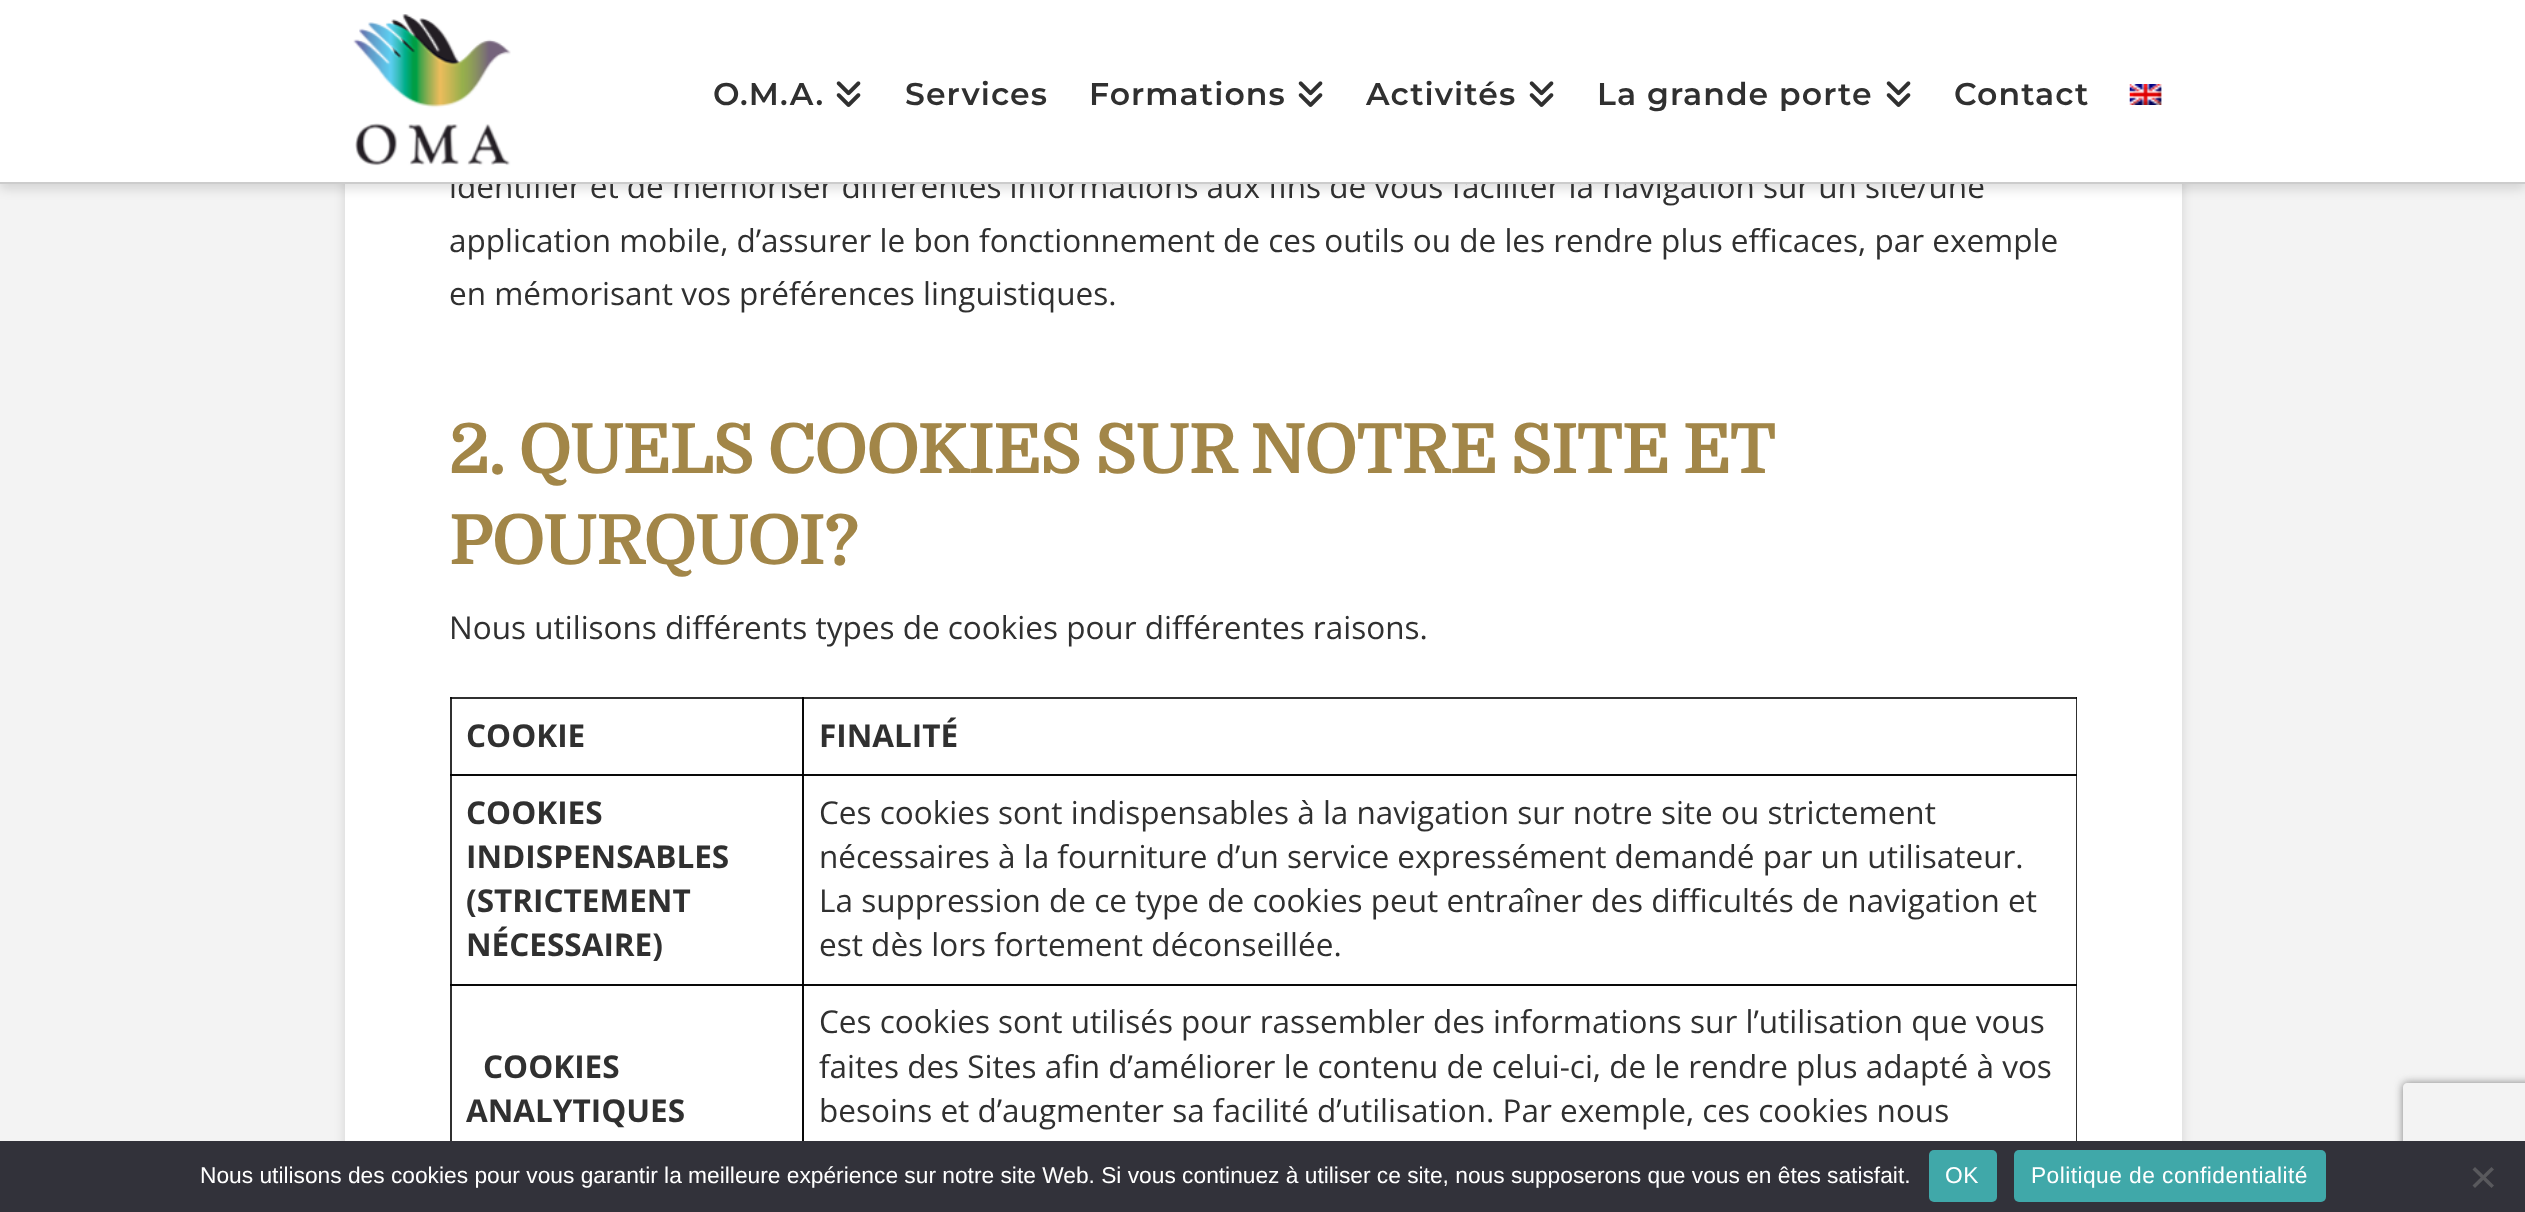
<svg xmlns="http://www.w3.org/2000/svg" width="2525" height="1212">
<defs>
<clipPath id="clip1"><path d="M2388 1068h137v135h-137zm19 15h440c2 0 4 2 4 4v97c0 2-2 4-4 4h-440c-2 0-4-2-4-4v-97c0-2 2-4 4-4z" clip-rule="evenodd"/></clipPath>
</defs>
<rect width="100%" height="100%" fill="#f3f3f3"/>
<rect x="345" y="-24" width="1837" height="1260" rx="7" fill="#00000021" filter="blur(5.5px)"/>
<rect x="345" y="184" width="1837" height="957" fill="#fff"/>
<rect y="5" width="2525" height="184" fill="#00000021" filter="blur(5.5px)"/>
<text x="449" y="198" style="font-family:Open Sans;font-size:31.5px;fill:#303030">identifier et de mémoriser différentes informations aux fins de vous faciliter la navigation sur un site/une</text>
<rect width="2525" height="182" fill="#fff"/>
<rect y="182" width="2525" height="2" fill="#ccc"/>
<image x="353" y="14" width="158" height="152" href="media/1.png"/>
<text x="713" y="105" style="font-family:Montserrat;font-size:31.5px;font-weight:100;letter-spacing:1.1px;fill:#303030">O.M.A.</text>
<image x="836" y="81" width="25" height="26" href="media/2.png"/>
<text x="905" y="105" style="font-family:Montserrat;font-size:31.5px;font-weight:100;letter-spacing:1.1px;fill:#303030">Services</text>
<text x="1089" y="105" style="font-family:Montserrat;font-size:31.5px;font-weight:100;letter-spacing:1.1px;fill:#303030">Formations</text>
<image x="1298" y="81" width="25" height="26" href="media/2.png"/>
<text x="1366" y="105" style="font-family:Montserrat;font-size:31.5px;font-weight:100;letter-spacing:1.1px;fill:#303030">Activités</text>
<image x="1529" y="81" width="25" height="26" href="media/2.png"/>
<text x="1597" y="105" style="font-family:Montserrat;font-size:31.5px;font-weight:100;letter-spacing:1.1px;fill:#303030">La grande porte</text>
<image x="1886" y="81" width="25" height="26" href="media/2.png"/>
<text x="1954" y="105" style="font-family:Montserrat;font-size:31.5px;font-weight:100;letter-spacing:1.1px;fill:#303030">Contact</text>
<image x="2129" y="84" width="33" height="21" href="media/3.png"/>
<rect x="450" y="697" width="2" height="444" fill="#303030"/>
<rect x="450" y="697" width="353" height="2" fill="#303030"/>
<rect x="450" y="697" width="2" height="2" fill="#090909"/>
<rect x="802" y="697" width="2" height="78" fill="#090909"/>
<rect x="2076" y="697" width="1" height="444" fill="#303030"/>
<rect x="450" y="774" width="353" height="2" fill="#090909"/>
<rect x="450" y="775" width="2" height="1" fill="#020202"/>
<rect x="450" y="774" width="2" height="1" fill="#000"/>
<rect x="802" y="774" width="2" height="211" fill="#090909"/>
<rect x="450" y="984" width="353" height="2" fill="#090909"/>
<rect x="450" y="985" width="2" height="1" fill="#020202"/>
<rect x="450" y="984" width="2" height="1" fill="#000"/>
<rect x="802" y="984" width="2" height="157" fill="#090909"/>
<text x="449" y="252" style="font-family:Open Sans;font-size:31.5px;fill:#303030">application mobile, d’assurer le bon fonctionnement de ces outils ou de les rendre plus efficaces, par exemple</text>
<text x="449" y="305" style="font-family:Open Sans;font-size:31.5px;fill:#303030">en mémorisant vos préférences linguistiques.</text>
<text x="449" y="473" word-spacing="-0.5" style="font-family:Domine;font-size:69.25px;font-weight:bold;letter-spacing:-1.6px;fill:#a28648">2. QUELS COOKIES SUR NOTRE SITE ET</text>
<text x="449" y="564" style="font-family:Domine;font-size:69.25px;font-weight:bold;letter-spacing:-1.6px;fill:#a28648">POURQUOI?</text>
<text x="449" y="639" style="font-family:Open Sans;font-size:31.5px;fill:#303030">Nous utilisons différents types de cookies pour différentes raisons.</text>
<text x="466" y="747" style="font-family:Open Sans;font-size:31.5px;font-weight:bold;fill:#303030">COOKIE</text>
<rect x="802" y="697" width="1275" height="2" fill="#303030"/>
<rect x="802" y="697" width="2" height="2" fill="#020202"/>
<rect x="2076" y="697" width="1" height="2" fill="#090909"/>
<text x="819" y="747" style="font-family:Open Sans;font-size:31.5px;font-weight:bold;fill:#303030">FINALITÉ</text>
<text x="466" y="824" style="font-family:Open Sans;font-size:31.5px;font-weight:bold;fill:#303030">COOKIES</text>
<text x="466" y="868" style="font-family:Open Sans;font-size:31.5px;font-weight:bold;fill:#303030">INDISPENSABLES</text>
<text x="466" y="912" style="font-family:Open Sans;font-size:31.5px;font-weight:bold;fill:#303030">(STRICTEMENT</text>
<text x="466" y="956" style="font-family:Open Sans;font-size:31.5px;font-weight:bold;fill:#303030">NÉCESSAIRE)</text>
<rect x="802" y="774" width="1275" height="2" fill="#090909"/>
<rect x="802" y="774" width="2" height="2" fill="#000"/>
<rect x="2076" y="774" width="1" height="2" fill="#020202"/>
<text x="819" y="824" style="font-family:Open Sans;font-size:31.5px;fill:#303030">Ces cookies sont indispensables à la navigation sur notre site ou strictement</text>
<text x="819" y="868" style="font-family:Open Sans;font-size:31.5px;fill:#303030">nécessaires à la fourniture d’un service expressément demandé par un utilisateur.</text>
<text x="819" y="912" style="font-family:Open Sans;font-size:31.5px;fill:#303030">La suppression de ce type de cookies peut entraîner des difficultés de navigation et</text>
<text x="819" y="956" style="font-family:Open Sans;font-size:31.5px;fill:#303030">est dès lors fortement déconseillée.</text>
<text x="483" y="1078" style="font-family:Open Sans;font-size:31.5px;font-weight:bold;fill:#303030">COOKIES</text>
<text x="466" y="1122" style="font-family:Open Sans;font-size:31.5px;font-weight:bold;fill:#303030">ANALYTIQUES</text>
<rect x="802" y="984" width="1275" height="2" fill="#090909"/>
<rect x="802" y="984" width="2" height="2" fill="#000"/>
<rect x="2076" y="984" width="1" height="2" fill="#020202"/>
<text x="819" y="1033" style="font-family:Open Sans;font-size:31.5px;fill:#303030">Ces cookies sont utilisés pour rassembler des informations sur l’utilisation que vous</text>
<text x="819" y="1078" style="font-family:Open Sans;font-size:31.5px;fill:#303030">faites des Sites afin d’améliorer le contenu de celui-ci, de le rendre plus adapté à vos</text>
<text x="819" y="1122" style="font-family:Open Sans;font-size:31.5px;fill:#303030">besoins et d’augmenter sa facilité d’utilisation. Par exemple, ces cookies nous</text>
<g clip-path="url(#clip1)">
<rect x="2403" y="1083" width="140" height="105" rx="4" fill="#808080" filter="blur(4.5px)"/>
</g>
<rect y="1141" width="2525" height="71" fill="#32323a"/>
<text x="200" y="1183" style="font-family:Liberation Sans;font-size:22.75px;fill:#fff">Nous utilisons des cookies pour vous garantir la meilleure expérience sur notre site Web. Si vous continuez à utiliser ce site, nous supposerons que vous en êtes satisfait.</text>
<rect x="1929" y="1150" width="68" height="52" rx="5" fill="#40a8a9"/>
<text x="1945" y="1183" style="font-family:Liberation Sans;font-size:22.75px;letter-spacing:0.45px;fill:#fff">OK</text>
<rect x="2014" y="1150" width="312" height="52" rx="5" fill="#40a8a9"/>
<text x="2031" y="1183" style="font-family:Liberation Sans;font-size:22.75px;letter-spacing:0.45px;fill:#fff">Politique de confidentialité</text>
<path d="M2491.5 1167l2.5 2.5l-19 18.5l-2.5-2.5z" fill="#59595d"/>
<path d="M2472.5 1169.5l2.5-2.5l19 18.5l-2.5 2.5z" fill="#59595d"/>
</svg>
